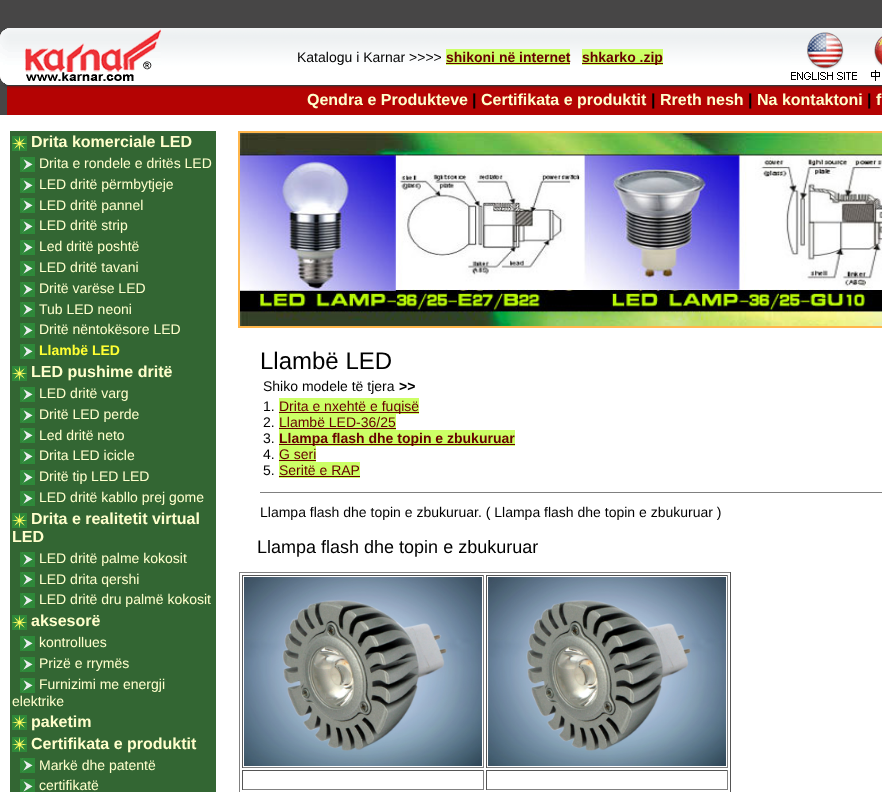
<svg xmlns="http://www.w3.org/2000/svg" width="882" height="792">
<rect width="100%" height="100%" fill="#474646"/>
<image x="161" y="28" width="721" height="57" href="media/1.png"/>
<image x="0" y="28" width="161" height="57" href="media/2.png"/>
<text x="297" y="62" style="font-family:Liberation Sans;font-size:14px;fill:#000">Katalogu i Karnar &gt;&gt;&gt;&gt;</text>
<rect x="446" y="49" width="124" height="16" fill="#cf6"/>
<text x="446" y="62" style="font-family:Liberation Sans;font-size:14px;font-weight:bold;fill:#600">shikoni në internet</text>
<rect x="446" y="63" width="124" height="1" fill="#600"/>
<rect x="582" y="49" width="81" height="16" fill="#cf6"/>
<rect x="582" y="63" width="81" height="1" fill="#600"/>
<text x="582" y="62" style="font-family:Liberation Sans;font-size:14px;font-weight:bold;fill:#600">shkarko .zip</text>
<image x="791" y="32" width="91" height="49" href="media/3.png"/>
<image x="9" y="85" width="873" height="30" href="media/4.png"/>
<image x="0" y="85" width="9" height="30" href="media/5.png"/>
<text x="307" y="105" style="font-family:Liberation Sans;font-size:16px;font-weight:bold;fill:#ffc">Qendra e Produkteve</text>
<text x="472" y="105" style="font-family:Liberation Sans;font-size:16px;font-weight:bold;fill:#000">|</text>
<text x="481" y="105" style="font-family:Liberation Sans;font-size:16px;font-weight:bold;fill:#ffc">Certifikata e produktit</text>
<text x="651" y="105" style="font-family:Liberation Sans;font-size:16px;font-weight:bold;fill:#000">|</text>
<text x="660" y="105" style="font-family:Liberation Sans;font-size:16px;font-weight:bold;fill:#ffc">Rreth nesh</text>
<text x="748" y="105" style="font-family:Liberation Sans;font-size:16px;font-weight:bold;fill:#000">|</text>
<text x="757" y="105" style="font-family:Liberation Sans;font-size:16px;font-weight:bold;fill:#ffc">Na kontaktoni</text>
<text x="867" y="105" style="font-family:Liberation Sans;font-size:16px;font-weight:bold;fill:#000">|</text>
<text x="876" y="105" style="font-family:Liberation Sans;font-size:16px;font-weight:bold;fill:#ffc">f</text>
<rect y="115" width="882" height="677" fill="#fff"/>
<rect x="10" y="131" width="206" height="661" fill="#363"/>
<image x="12" y="136" width="15" height="15" href="media/6.png"/>
<text x="31" y="147" style="font-family:Liberation Sans;font-size:16px;font-weight:bold;fill:#ffc">Drita komerciale LED</text>
<image x="20" y="157" width="15" height="15" href="media/7.png"/>
<text x="39" y="168" style="font-family:Liberation Sans;font-size:14px;fill:#ffc">Drita e rondele e dritës LED</text>
<image x="20" y="178" width="15" height="15" href="media/7.png"/>
<text x="39" y="189" style="font-family:Liberation Sans;font-size:14px;fill:#ffc">LED dritë përmbytjeje</text>
<image x="20" y="198" width="15" height="15" href="media/7.png"/>
<text x="39" y="210" style="font-family:Liberation Sans;font-size:14px;fill:#ffc">LED dritë pannel</text>
<image x="20" y="219" width="15" height="15" href="media/7.png"/>
<text x="39" y="230" style="font-family:Liberation Sans;font-size:14px;fill:#ffc">LED dritë strip</text>
<image x="20" y="240" width="15" height="15" href="media/7.png"/>
<text x="39" y="251" style="font-family:Liberation Sans;font-size:14px;fill:#ffc">Led dritë poshtë</text>
<image x="20" y="261" width="15" height="15" href="media/7.png"/>
<text x="39" y="272" style="font-family:Liberation Sans;font-size:14px;fill:#ffc">LED dritë tavani</text>
<image x="20" y="282" width="15" height="15" href="media/7.png"/>
<text x="39" y="293" style="font-family:Liberation Sans;font-size:14px;fill:#ffc">Dritë varëse LED</text>
<image x="20" y="302" width="15" height="15" href="media/7.png"/>
<text x="39" y="314" style="font-family:Liberation Sans;font-size:14px;fill:#ffc">Tub LED neoni</text>
<image x="20" y="323" width="15" height="15" href="media/7.png"/>
<text x="39" y="334" style="font-family:Liberation Sans;font-size:14px;fill:#ffc">Dritë nëntokësore LED</text>
<image x="20" y="344" width="15" height="15" href="media/7.png"/>
<text x="39" y="355" style="font-family:Liberation Sans;font-size:14px;font-weight:bold;fill:#ff3">Llambë LED</text>
<image x="12" y="366" width="15" height="15" href="media/6.png"/>
<text x="31" y="377" style="font-family:Liberation Sans;font-size:16px;font-weight:bold;fill:#ffc">LED pushime dritë</text>
<image x="20" y="387" width="15" height="15" href="media/7.png"/>
<text x="39" y="398" style="font-family:Liberation Sans;font-size:14px;fill:#ffc">LED dritë varg</text>
<image x="20" y="408" width="15" height="15" href="media/7.png"/>
<text x="39" y="419" style="font-family:Liberation Sans;font-size:14px;fill:#ffc">Dritë LED perde</text>
<image x="20" y="428" width="15" height="15" href="media/7.png"/>
<text x="39" y="440" style="font-family:Liberation Sans;font-size:14px;fill:#ffc">Led dritë neto</text>
<image x="20" y="449" width="15" height="15" href="media/7.png"/>
<text x="39" y="460" style="font-family:Liberation Sans;font-size:14px;fill:#ffc">Drita LED icicle</text>
<image x="20" y="470" width="15" height="15" href="media/7.png"/>
<text x="39" y="481" style="font-family:Liberation Sans;font-size:14px;fill:#ffc">Dritë tip LED LED</text>
<image x="20" y="491" width="15" height="15" href="media/7.png"/>
<text x="39" y="502" style="font-family:Liberation Sans;font-size:14px;fill:#ffc">LED dritë kabllo prej gome</text>
<image x="12" y="513" width="15" height="15" href="media/6.png"/>
<text x="31" y="524" style="font-family:Liberation Sans;font-size:16px;font-weight:bold;fill:#ffc">Drita e realitetit virtual</text>
<text x="12" y="542" style="font-family:Liberation Sans;font-size:16px;font-weight:bold;fill:#ffc">LED</text>
<image x="20" y="552" width="15" height="15" href="media/7.png"/>
<text x="39" y="563" style="font-family:Liberation Sans;font-size:14px;fill:#ffc">LED dritë palme kokosit</text>
<image x="20" y="572" width="15" height="15" href="media/7.png"/>
<text x="39" y="584" style="font-family:Liberation Sans;font-size:14px;fill:#ffc">LED drita qershi</text>
<image x="20" y="593" width="15" height="15" href="media/7.png"/>
<text x="39" y="604" style="font-family:Liberation Sans;font-size:14px;fill:#ffc">LED dritë dru palmë kokosit</text>
<image x="12" y="615" width="15" height="15" href="media/6.png"/>
<text x="31" y="626" style="font-family:Liberation Sans;font-size:16px;font-weight:bold;fill:#ffc">aksesorë</text>
<image x="20" y="636" width="15" height="15" href="media/7.png"/>
<text x="39" y="647" style="font-family:Liberation Sans;font-size:14px;fill:#ffc">kontrollues</text>
<image x="20" y="657" width="15" height="15" href="media/7.png"/>
<text x="39" y="668" style="font-family:Liberation Sans;font-size:14px;fill:#ffc">Prizë e rrymës</text>
<image x="20" y="678" width="15" height="15" href="media/7.png"/>
<text x="39" y="689" style="font-family:Liberation Sans;font-size:14px;fill:#ffc">Furnizimi me energji</text>
<text x="12" y="706" style="font-family:Liberation Sans;font-size:14px;fill:#ffc">elektrike</text>
<image x="12" y="715" width="15" height="15" href="media/6.png"/>
<text x="31" y="727" style="font-family:Liberation Sans;font-size:16px;font-weight:bold;fill:#ffc">paketim</text>
<image x="12" y="737" width="15" height="15" href="media/6.png"/>
<text x="31" y="749" style="font-family:Liberation Sans;font-size:16px;font-weight:bold;fill:#ffc">Certifikata e produktit</text>
<image x="20" y="758" width="15" height="15" href="media/7.png"/>
<text x="39" y="770" style="font-family:Liberation Sans;font-size:14px;fill:#ffc">Markë dhe patentë</text>
<image x="20" y="779" width="15" height="13" href="media/8.png"/>
<text x="39" y="790" style="font-family:Liberation Sans;font-size:14px;fill:#ffc">certifikatë</text>
<rect x="239" y="132" width="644" height="195" fill="none" stroke="#ffb64b" stroke-width="2"/>
<image x="240" y="133" width="642" height="193" href="media/9.png"/>
<text x="260" y="369" style="font-family:Liberation Sans;font-size:24px;fill:#000">Llambë LED</text>
<text x="263" y="391" style="font-family:Liberation Sans;font-size:14px;fill:#000">Shiko modele të tjera</text>
<text x="399" y="391" style="font-family:Liberation Sans;font-size:14px;font-weight:bold;fill:#000">&gt;&gt;</text>
<text x="263" y="411" style="font-family:Liberation Sans;font-size:14px;fill:#000">1.</text>
<rect x="279" y="398" width="140" height="16" fill="#cf6"/>
<rect x="279" y="412" width="140" height="1" fill="#600"/>
<text x="279" y="411" style="font-family:Liberation Sans;font-size:14px;fill:#600">Drita e nxehtë e fuqisë</text>
<text x="263" y="427" style="font-family:Liberation Sans;font-size:14px;fill:#000">2.</text>
<rect x="279" y="414" width="117" height="16" fill="#cf6"/>
<text x="279" y="427" style="font-family:Liberation Sans;font-size:14px;fill:#600">Llambë LED-36/25</text>
<rect x="279" y="428" width="117" height="1" fill="#600"/>
<text x="263" y="443" style="font-family:Liberation Sans;font-size:14px;fill:#000">3.</text>
<rect x="279" y="430" width="236" height="16" fill="#cf6"/>
<rect x="279" y="444" width="236" height="1" fill="#600"/>
<text x="279" y="443" style="font-family:Liberation Sans;font-size:14px;font-weight:bold;fill:#600">Llampa flash dhe topin e zbukuruar</text>
<text x="263" y="459" style="font-family:Liberation Sans;font-size:14px;fill:#000">4.</text>
<rect x="279" y="446" width="37" height="16" fill="#cf6"/>
<text x="279" y="459" style="font-family:Liberation Sans;font-size:14px;fill:#600">G seri</text>
<rect x="279" y="460" width="37" height="1" fill="#600"/>
<text x="263" y="475" style="font-family:Liberation Sans;font-size:14px;fill:#000">5.</text>
<rect x="279" y="462" width="81" height="16" fill="#cf6"/>
<text x="279" y="475" style="font-family:Liberation Sans;font-size:14px;fill:#600">Seritë e RAP</text>
<rect x="279" y="476" width="81" height="1" fill="#600"/>
<rect x="260" y="492" width="622" height="1" fill="#808080"/>
<text x="260" y="517" style="font-family:Liberation Sans;font-size:14px;fill:#000">Llampa flash dhe topin e zbukuruar. ( Llampa flash dhe topin e zbukuruar )</text>
<text x="257" y="553" style="font-family:Liberation Sans;font-size:18px;fill:#000">Llampa flash dhe topin e zbukuruar</text>
<rect x="239" y="572" width="492" height="1" fill="#808080"/>
<rect x="730" y="572" width="1" height="220" fill="#555"/>
<rect x="239" y="572" width="1" height="220" fill="#808080"/>
<rect x="242" y="575" width="242" height="1" fill="#555"/>
<rect x="483" y="575" width="1" height="193" fill="#808080"/>
<rect x="242" y="767" width="242" height="1" fill="#808080"/>
<rect x="242" y="575" width="1" height="193" fill="#555"/>
<image x="244" y="577" width="238" height="189" href="media/10.png"/>
<rect x="486" y="575" width="242" height="1" fill="#555"/>
<rect x="727" y="575" width="1" height="193" fill="#808080"/>
<rect x="486" y="767" width="242" height="1" fill="#808080"/>
<rect x="486" y="575" width="1" height="193" fill="#555"/>
<image x="488" y="577" width="238" height="189" href="media/10.png"/>
<rect x="242" y="770" width="242" height="1" fill="#555"/>
<rect x="483" y="770" width="1" height="20" fill="#808080"/>
<rect x="242" y="789" width="242" height="1" fill="#808080"/>
<rect x="242" y="770" width="1" height="20" fill="#555"/>
<rect x="486" y="770" width="242" height="1" fill="#555"/>
<rect x="727" y="770" width="1" height="20" fill="#808080"/>
<rect x="486" y="789" width="242" height="1" fill="#808080"/>
<rect x="486" y="770" width="1" height="20" fill="#555"/>
</svg>
